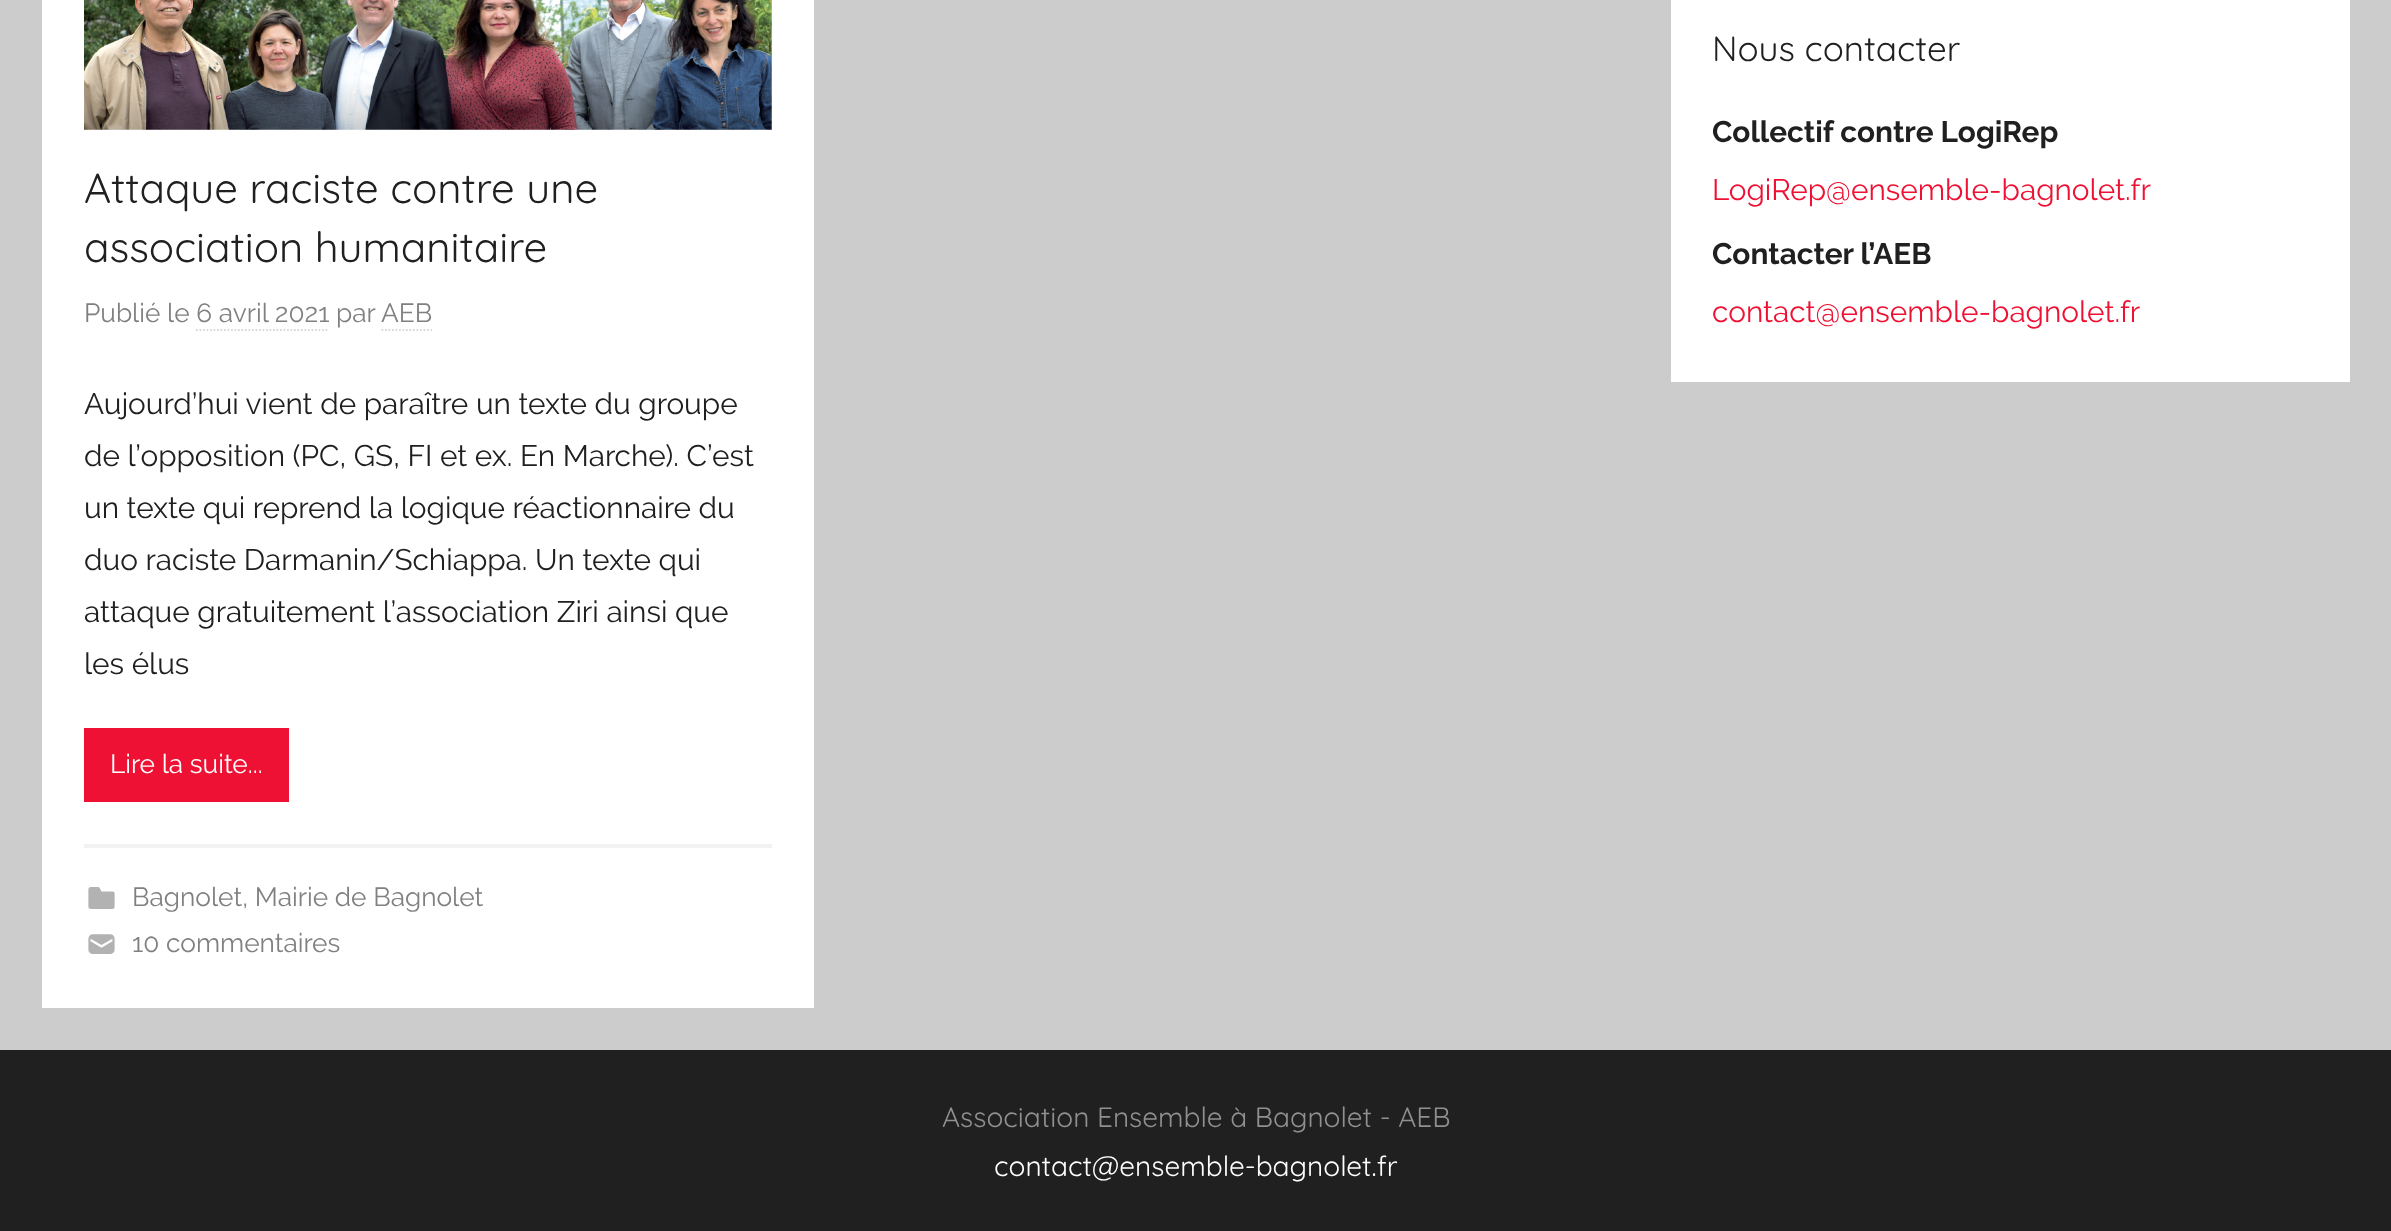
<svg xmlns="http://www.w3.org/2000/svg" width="2391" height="1231">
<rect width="100%" height="100%" fill="#ccc"/>
<rect x="42" width="772" height="1008" fill="#fff"/>
<image x="84" y="0" width="688" height="130" href="media/1.png"/>
<text x="84" y="203" style="font-family:Quicksand;font-size:42px;fill:#202020">Attaque raciste contre une</text>
<text x="84" y="262" style="font-family:Quicksand;font-size:42px;fill:#202020">association humanitaire</text>
<text x="84" y="322" style="font-family:Raleway;font-size:26.25px;fill:#808080">Publié le 6 avril 2021</text>
<path d="M196 330h133" fill="none" stroke="#d9d9d9" stroke-width="1.8" stroke-dasharray="1.75 1.75"/>
<text x="336" y="322" style="font-family:Raleway;font-size:26.25px;fill:#808080">par</text>
<path d="M381.5 330h50.5" fill="none" stroke="#d9d9d9" stroke-width="1.8" stroke-dasharray="1.75 1.75"/>
<text x="381" y="322" style="font-family:Raleway;font-size:26.25px;fill:#808080">AEB</text>
<text x="84" y="414" style="font-family:Raleway;font-size:29.75px;fill:#202020">Aujourd’hui vient de paraître un texte du groupe</text>
<text x="84" y="466" style="font-family:Raleway;font-size:29.75px;fill:#202020">de l’opposition (PC, GS, FI et ex. En Marche). C’est</text>
<text x="84" y="518" style="font-family:Raleway;font-size:29.75px;fill:#202020">un texte qui reprend la logique réactionnaire du</text>
<text x="84" y="570" style="font-family:Raleway;font-size:29.75px;fill:#202020">duo raciste Darmanin/Schiappa. Un texte qui</text>
<text x="84" y="622" style="font-family:Raleway;font-size:29.75px;fill:#202020">attaque gratuitement l’association Ziri ainsi que</text>
<text x="84" y="674" style="font-family:Raleway;font-size:29.75px;fill:#202020">les élus</text>
<rect x="84" y="728" width="205" height="74" fill="#e13"/>
<text x="110" y="773" style="font-family:Raleway;font-size:26.25px;fill:#fff">Lire la suite...</text>
<rect x="84" y="844" width="688" height="4" fill="#f2f2f2"/>
<image x="88" y="887" width="27" height="22" href="media/2.png"/>
<text x="132" y="906" style="font-family:Raleway;font-size:26.25px;fill:#808080">Bagnolet, Mairie de Bagnolet</text>
<image x="88" y="934" width="27" height="20" href="media/3.png"/>
<text x="132" y="952" style="font-family:Raleway;font-size:26.25px;fill:#808080">10 commentaires</text>
<rect x="1671" width="679" height="382" fill="#fff"/>
<text x="1712" y="61" style="font-family:Quicksand;font-size:35px;fill:#202020">Nous contacter</text>
<text x="1712" y="142" style="font-family:Raleway;font-size:29.75px;font-weight:bold;fill:#202020">Collectif contre LogiRep</text>
<text x="1712" y="200" style="font-family:Raleway;font-size:29.75px;fill:#e13">LogiRep@ensemble-bagnolet.fr</text>
<text x="1712" y="264" style="font-family:Raleway;font-size:29.75px;font-weight:bold;fill:#202020">Contacter l’AEB</text>
<text x="1712" y="322" style="font-family:Raleway;font-size:29.75px;fill:#e13">contact@ensemble-bagnolet.fr</text>
<rect y="1050" width="2391" height="181" fill="#202020"/>
<text x="942" y="1127" style="font-family:Quicksand;font-size:28px;fill:#909090">Association Ensemble à Bagnolet - AEB</text>
<text x="994" y="1176" style="font-family:Quicksand;font-size:28px;fill:#fff">contact@ensemble-bagnolet.fr</text>
</svg>
